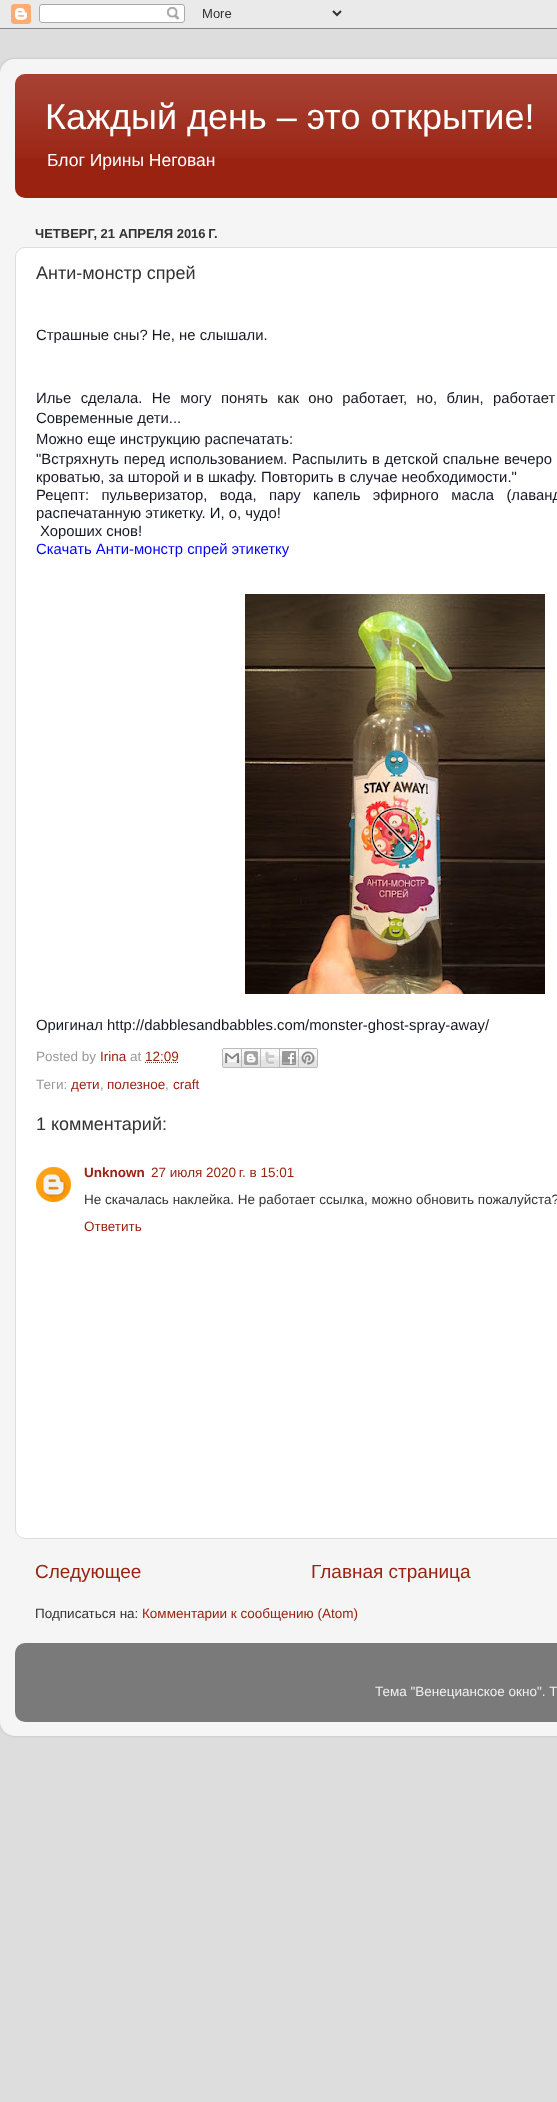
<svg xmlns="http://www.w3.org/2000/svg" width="557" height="2102">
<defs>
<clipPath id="clip1"><path d="M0 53h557v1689h-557zm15 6h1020c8.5 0 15 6.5 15 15v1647c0 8.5-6.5 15-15 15h-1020c-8.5 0-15-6.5-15-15v-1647c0-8.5 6.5-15 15-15z" clip-rule="evenodd"/></clipPath>
</defs>
<rect width="100%" height="100%" fill="#ddd"/>
<image x="0" y="0" width="557" height="29" href="media/1.png"/>
<g clip-path="url(#clip1)">
<rect y="59" width="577" height="1677" rx="15" fill="#00000026" filter="blur(1.5px)"/>
</g>
<image x="0" y="59" width="557" height="1677" href="media/2.png"/>
<rect x="15" y="74" width="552" height="124" rx="10" fill="#921"/>
<image x="15" y="74" width="542" height="84" href="media/3.png"/>
<text x="45" y="129" style="font-family:Liberation Sans;font-size:36px;fill:#fff">Каждый день – это открытие!</text>
<text x="47" y="166" style="font-family:Liberation Sans;font-size:17.5px;fill:#fff">Блог Ирины Негован</text>
<text x="35" y="238" style="font-family:Liberation Sans;font-size:13px;font-weight:bold;fill:#333">ЧЕТВЕРГ, 21 АПРЕЛЯ 2016 Г.</text>
<rect x="15.5" y="247.5" width="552" height="1291" rx="9.5" fill="#fff" stroke="#ddd"/>
<text x="36" y="279" style="font-family:Liberation Sans;font-size:18px;fill:#333">Анти-монстр спрей</text>
<text x="36" y="340" style="font-family:Liberation Sans;font-size:14.85px;fill:#141823">Страшные сны? Не, не слышали.</text>
<text x="36" y="403" word-spacing="5.25" style="font-family:Liberation Sans;font-size:14.85px;fill:#141823">Илье сделала. Не могу понять как оно работает, но, блин, работает</text>
<text x="36" y="423" style="font-family:Liberation Sans;font-size:14.85px;fill:#141823">Современные дети...</text>
<text x="36" y="444" style="font-family:Liberation Sans;font-size:14.85px;fill:#141823">Можно еще инструкцию распечатать:</text>
<text x="36" y="464" word-spacing="0.5" style="font-family:Liberation Sans;font-size:14.85px;fill:#141823">"Встряхнуть перед использованием. Распылить в детской спальне вечеро</text>
<text x="36" y="482" style="font-family:Liberation Sans;font-size:14.85px;fill:#141823">кроватью, за шторой и в шкафу. Повторить в случае необходимости."</text>
<text x="36" y="500" word-spacing="8.25" style="font-family:Liberation Sans;font-size:14.85px;fill:#141823">Рецепт: пульверизатор, вода, пару капель эфирного масла (лаванд</text>
<text x="36" y="518" style="font-family:Liberation Sans;font-size:14.85px;fill:#141823">распечатанную этикетку. И, о, чудо!</text>
<text x="40" y="536" style="font-family:Liberation Sans;font-size:14.85px;fill:#141823">Хороших снов!</text>
<text x="36" y="554" style="font-family:Liberation Sans;font-size:14.85px;fill:#00f">Скачать Анти-монстр спрей этикетку</text>
<image x="245" y="594" width="300" height="400" href="media/4.png"/>
<text x="36" y="1030" style="font-family:Liberation Sans;font-size:14.85px;fill:#141823">Оригинал http://dabblesandbabbles.com/monster-ghost-spray-away/</text>
<text x="36" y="1061" style="font-family:Liberation Sans;font-size:13.5px;fill:#999">Posted by</text>
<text x="100" y="1061" style="font-family:Liberation Sans;font-size:13.5px;fill:#921">Irina</text>
<text x="130" y="1061" style="font-family:Liberation Sans;font-size:13.5px;fill:#999">at</text>
<text x="145" y="1061" style="font-family:Liberation Sans;font-size:13.5px;fill:#921">12:09</text>
<path d="M145 1062.5h33.5" fill="none" stroke="#921" stroke-dasharray="1 1"/>
<image x="222" y="1048" width="20" height="20" href="media/5.png"/>
<image x="242" y="1048" width="19" height="20" href="media/6.png"/>
<image x="261" y="1048" width="19" height="20" href="media/7.png"/>
<image x="280" y="1048" width="19" height="20" href="media/8.png"/>
<image x="299" y="1048" width="19" height="20" href="media/9.png"/>
<text x="36" y="1089" style="font-family:Liberation Sans;font-size:13.5px;fill:#999">Теги:</text>
<text x="71" y="1089" style="font-family:Liberation Sans;font-size:13.5px;fill:#921">дети</text>
<text x="100" y="1089" style="font-family:Liberation Sans;font-size:13.5px;fill:#999">,</text>
<text x="107" y="1089" style="font-family:Liberation Sans;font-size:13.5px;fill:#921">полезное</text>
<text x="165" y="1089" style="font-family:Liberation Sans;font-size:13.5px;fill:#999">,</text>
<text x="173" y="1089" style="font-family:Liberation Sans;font-size:13.5px;fill:#921">craft</text>
<text x="36" y="1130" style="font-family:Liberation Sans;font-size:18px;fill:#333">1 комментарий:</text>
<image x="36" y="1167" width="35" height="35" href="media/10.png"/>
<text x="84" y="1177" style="font-family:Liberation Sans;font-size:13.5px;font-weight:bold;fill:#921">Unknown</text>
<text x="151" y="1177" style="font-family:Liberation Sans;font-size:13.5px;fill:#921">27 июля 2020 г. в 15:01</text>
<text x="84" y="1204" style="font-family:Liberation Sans;font-size:13.5px;fill:#333">Не скачалась наклейка. Не работает ссылка, можно обновить пожалуйста?</text>
<text x="84" y="1231" style="font-family:Liberation Sans;font-size:13.5px;fill:#921">Ответить</text>
<text x="35" y="1578" style="font-family:Liberation Sans;font-size:19px;fill:#921">Следующее</text>
<text x="311" y="1578" style="font-family:Liberation Sans;font-size:19px;fill:#921">Главная страница</text>
<text x="35" y="1618" style="font-family:Liberation Sans;font-size:13.5px;fill:#333">Подписаться на:</text>
<text x="142" y="1618" style="font-family:Liberation Sans;font-size:13.5px;fill:#921">Комментарии к сообщению (Atom)</text>
<image x="15" y="1643" width="542" height="79" href="media/11.png"/>
<text x="375" y="1696" style="font-family:Liberation Sans;font-size:13.5px;fill:#eee">Тема "Венецианское окно". Т</text>
</svg>
